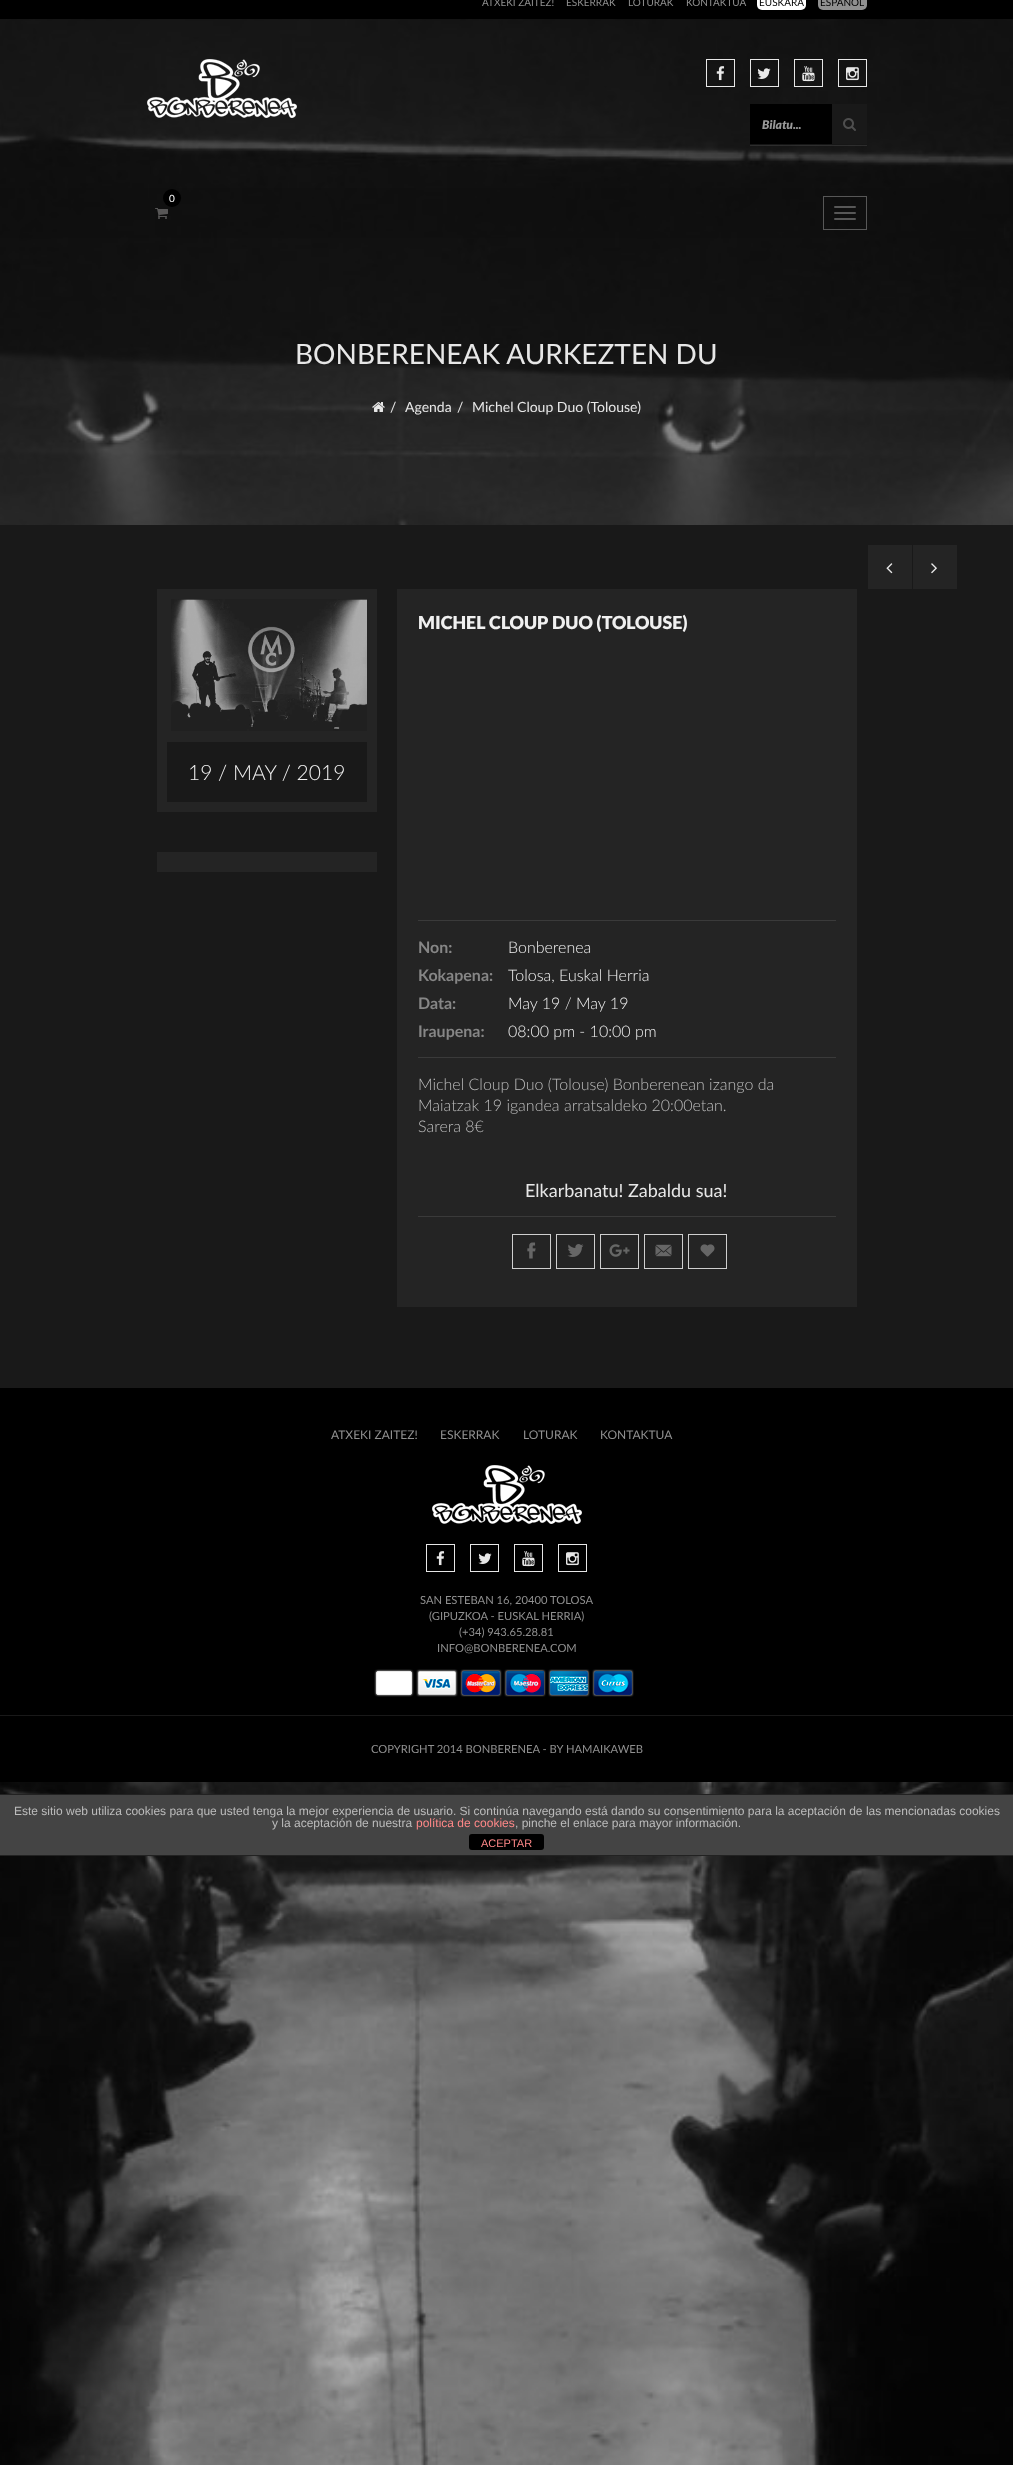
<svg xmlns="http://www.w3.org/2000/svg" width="1013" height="2465">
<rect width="100%" height="100%" fill="#fff"/>
<image x="0" y="19" width="1013" height="2446" href="media/1.png"/>
<rect width="1013" height="19" fill="#000"/>
<text x="482" y="6" style="font-family:Lato;font-size:10px;fill:#909090">ATXEKI ZAITEZ!</text>
<text x="566" y="6" style="font-family:Lato;font-size:10px;fill:#909090">ESKERRAK</text>
<text x="628" y="6" style="font-family:Lato;font-size:10px;fill:#909090">LOTURAK</text>
<text x="686" y="6" style="font-family:Lato;font-size:10px;fill:#909090">KONTAKTUA</text>
<rect x="757" y="-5" width="49" height="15" rx="5" fill="#fff"/>
<text x="759" y="6" style="font-family:Lato;font-size:10px;fill:#000">EUSKARA</text>
<rect x="818" y="-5" width="49" height="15" rx="5" fill="#909090"/>
<text x="820" y="6" style="font-family:Lato;font-size:10px;fill:#000">ESPAÑOL</text>
<rect y="19" width="1013" height="169" fill="#0e0e0e80"/>
<image x="147" y="59" width="150" height="59" href="media/2.png"/>
<rect x="706.5" y="59.5" width="28" height="27" fill="none" stroke="#ffffffe6"/>
<image x="716" y="66" width="9" height="15" href="media/3.png"/>
<rect x="750.5" y="59.5" width="28" height="27" fill="none" stroke="#e7e7e7"/>
<image x="757" y="68" width="14" height="11" href="media/4.png"/>
<rect x="794.5" y="59.5" width="28" height="27" fill="none" stroke="#e7e7e7"/>
<image x="802" y="66" width="13" height="16" href="media/5.png"/>
<rect x="838.5" y="59.5" width="28" height="27" fill="none" stroke="#e7e7e7"/>
<image x="846" y="67" width="13" height="14" href="media/6.png"/>
<rect x="750" y="145" width="117" height="1" fill="#ffffff1a"/>
<rect x="750" y="104" width="82" height="40" fill="#000"/>
<text x="762" y="129" style="font-family:Lato;font-size:12px;font-weight:900;font-style:italic;fill:#999">Bilatu...</text>
<rect x="832" y="104" width="35" height="40" fill="#191919"/>
<image x="843" y="118" width="13" height="13" href="media/7.png"/>
<rect y="188" width="1004" height="50" fill="#0e0e0eb3"/>
<circle cx="172" cy="198" r="9" fill="#000"/>
<text x="169" y="202" style="font-family:Lato;font-size:10px;fill:#fff">0</text>
<image x="155" y="208" width="13" height="11" href="media/8.png"/>
<rect x="823.5" y="196.5" width="43" height="33" fill="none" stroke="#575757"/>
<rect x="834" y="206" width="22" height="2" rx="1" fill="#575757"/>
<rect x="834" y="212" width="22" height="2" rx="1" fill="#575757"/>
<rect x="834" y="218" width="22" height="2" rx="1" fill="#575757"/>
<rect y="238" width="1013" height="287" fill="#0e0e0e80"/>
<text x="295" y="364" style="font-family:Lato;font-size:28px;fill:#e7e7e7">BONBERENEAK AURKEZTEN DU</text>
<image x="372" y="402" width="13" height="10" href="media/9.png"/>
<text x="390" y="412" style="font-family:Lato;font-size:14px;fill:#e7e7e7">/</text>
<text x="405" y="412" style="font-family:Lato;font-size:14px;fill:#e7e7e7">Agenda</text>
<text x="457" y="412" style="font-family:Lato;font-size:14px;fill:#e7e7e7">/</text>
<text x="472" y="412" style="font-family:Lato;font-size:14px;fill:#e7e7e7">Michel Cloup Duo (Tolouse)</text>
<rect y="525" width="1013" height="863" fill="#191919"/>
<rect x="868" y="545" width="44" height="44" fill="#242424"/>
<image x="886" y="563" width="7" height="11" href="media/10.png"/>
<rect x="913" y="545" width="44" height="44" fill="#242424"/>
<image x="931" y="563" width="6" height="11" href="media/11.png"/>
<rect x="157" y="589" width="220" height="223" fill="#242424"/>
<image x="171" y="599" width="196" height="132" href="media/12.png"/>
<rect x="167" y="742" width="200" height="60" fill="#191919"/>
<text x="188" y="780" style="font-family:Lato;font-size:21px;font-weight:300;fill:#f0f0f0">19 / MAY / 2019</text>
<rect x="157" y="852" width="220" height="20" fill="#242424"/>
<rect x="397" y="589" width="460" height="718" fill="#242424"/>
<text x="418" y="629" style="font-family:Lato;font-size:18px;font-weight:900;fill:#f0f0f0">MICHEL CLOUP DUO (TOLOUSE)</text>
<rect x="418" y="920" width="418" height="1" fill="#3a3a3a"/>
<text x="418" y="953" style="font-family:Lato;font-size:16px;font-weight:bold;fill:#868686">Non:</text>
<text x="508" y="953" style="font-family:Lato;font-size:16px;font-weight:300;fill:#f0f0f0">Bonberenea</text>
<text x="418" y="981" style="font-family:Lato;font-size:16px;font-weight:bold;fill:#868686">Kokapena:</text>
<text x="508" y="981" style="font-family:Lato;font-size:16px;font-weight:300;fill:#f0f0f0">Tolosa, Euskal Herria</text>
<text x="418" y="1009" style="font-family:Lato;font-size:16px;font-weight:bold;fill:#868686">Data:</text>
<text x="508" y="1009" style="font-family:Lato;font-size:16px;font-weight:300;fill:#f0f0f0">May 19 / May 19</text>
<text x="418" y="1037" style="font-family:Lato;font-size:16px;font-weight:bold;fill:#868686">Iraupena:</text>
<text x="508" y="1037" style="font-family:Lato;font-size:16px;font-weight:300;fill:#f0f0f0">08:00 pm - 10:00 pm</text>
<rect x="418" y="1057" width="418" height="1" fill="#3a3a3a"/>
<text x="418" y="1090" style="font-family:Lato;font-size:16px;font-weight:300;fill:#bcbcbc">Michel Cloup Duo (Tolouse) Bonberenean izango da</text>
<text x="418" y="1111" style="font-family:Lato;font-size:16px;font-weight:300;fill:#bcbcbc">Maiatzak 19 igandea arratsaldeko 20:00etan.</text>
<text x="418" y="1132" style="font-family:Lato;font-size:16px;font-weight:300;fill:#bcbcbc">Sarera 8€</text>
<text x="525" y="1197" style="font-family:Lato;font-size:18px;fill:#e7e7e7">Elkarbanatu! Zabaldu sua!</text>
<rect x="418" y="1216" width="418" height="1" fill="#3a3a3a"/>
<rect x="512.5" y="1234.5" width="38" height="34" fill="none" stroke="#cfcfcf"/>
<image x="527" y="1242" width="9" height="17" href="media/13.png"/>
<rect x="556.5" y="1234.5" width="38" height="34" fill="none" stroke="#cfcfcf"/>
<image x="567" y="1244" width="17" height="13" href="media/14.png"/>
<rect x="600.5" y="1234.5" width="38" height="34" fill="none" stroke="#cfcfcf"/>
<image x="609" y="1244" width="21" height="13" href="media/15.png"/>
<rect x="644.5" y="1234.5" width="38" height="34" fill="none" stroke="#cfcfcf"/>
<image x="655" y="1244" width="17" height="13" href="media/16.png"/>
<rect x="688.5" y="1234.5" width="38" height="34" fill="none" stroke="#cfcfcf"/>
<image x="700" y="1244" width="15" height="13" href="media/17.png"/>
<rect y="1388" width="1013" height="327" fill="#000"/>
<rect y="1715" width="1013" height="1" fill="#191919"/>
<text x="331" y="1439" style="font-family:Lato;font-size:12px;fill:#909090">ATXEKI ZAITEZ!</text>
<text x="440" y="1439" style="font-family:Lato;font-size:12px;fill:#909090">ESKERRAK</text>
<text x="523" y="1439" style="font-family:Lato;font-size:12px;fill:#909090">LOTURAK</text>
<text x="600" y="1439" style="font-family:Lato;font-size:12px;fill:#909090">KONTAKTUA</text>
<image x="432" y="1465" width="150" height="59" href="media/18.png"/>
<rect x="426.5" y="1544.5" width="28" height="27" fill="none" stroke="#e6e6e6"/>
<image x="436" y="1551" width="9" height="15" href="media/19.png"/>
<rect x="470.5" y="1544.5" width="28" height="27" fill="none" stroke="#e6e6e6"/>
<image x="478" y="1553" width="14" height="11" href="media/20.png"/>
<rect x="514.5" y="1544.5" width="28" height="27" fill="none" stroke="#e6e6e6"/>
<image x="522" y="1551" width="13" height="16" href="media/21.png"/>
<rect x="558.5" y="1544.5" width="28" height="27" fill="none" stroke="#e6e6e6"/>
<image x="566" y="1552" width="13" height="14" href="media/22.png"/>
<text x="420" y="1604" style="font-family:Lato;font-size:11.2px;fill:#909090">SAN ESTEBAN 16, 20400 TOLOSA</text>
<text x="429" y="1620" style="font-family:Lato;font-size:11.2px;fill:#909090">(GIPUZKOA - EUSKAL HERRIA)</text>
<text x="459" y="1636" style="font-family:Lato;font-size:11.2px;fill:#909090">(+34) 943.65.28.81</text>
<text x="437" y="1652" style="font-family:Lato;font-size:11.2px;fill:#909090">INFO@BONBERENEA.COM</text>
<rect x="376" y="1671" width="36" height="24" rx="2" fill="#dcdcdc" filter="blur(1px)"/>
<rect x="376.5" y="1671.5" width="35" height="23" rx="1.5" fill="#fff" stroke="#ebebeb"/>
<rect x="418" y="1671" width="38" height="24" fill="#dcdcdc" filter="blur(1px)"/>
<image x="418" y="1671" width="38" height="24" href="media/23.png"/>
<rect x="462" y="1671" width="38" height="24" fill="#dcdcdc" filter="blur(1px)"/>
<image x="462" y="1671" width="38" height="24" href="media/24.png"/>
<rect x="506" y="1671" width="38" height="24" fill="#dcdcdc" filter="blur(1px)"/>
<image x="506" y="1671" width="38" height="24" href="media/25.png"/>
<rect x="550" y="1671" width="38" height="24" fill="#dcdcdc" filter="blur(1px)"/>
<image x="550" y="1671" width="38" height="24" href="media/26.png"/>
<rect x="594" y="1671" width="38" height="24" fill="#dcdcdc" filter="blur(1px)"/>
<image x="594" y="1671" width="38" height="24" href="media/27.png"/>
<rect y="1716" width="1013" height="66" fill="#000"/>
<text x="371" y="1753" style="font-family:Lato;font-size:11.2px;fill:#909090">COPYRIGHT 2014 BONBERENEA - BY HAMAIKAWEB</text>
<rect y="1795" width="1013" height="60" fill="#444"/>
<rect y="1794" width="1013" height="1" fill="#222"/>
<rect y="1855" width="1013" height="1" fill="#222"/>
<text x="14" y="1815" style="font-family:Liberation Sans;font-size:12px;fill:#bcbcbc">Este sitio web utiliza cookies para que usted tenga la mejor experiencia de usuario. Si continúa navegando está dando su consentimiento para la aceptación de las mencionadas cookies</text>
<text x="272" y="1827" style="font-family:Liberation Sans;font-size:12px;fill:#bcbcbc">y la aceptación de nuestra</text>
<text x="416" y="1827" style="font-family:Liberation Sans;font-size:12px;fill:#f88">política de cookies</text>
<text x="515" y="1827" style="font-family:Liberation Sans;font-size:12px;fill:#bcbcbc">, pinche el enlace para mayor información.</text>
<rect x="469" y="1834" width="75" height="16" rx="3" fill="#000"/>
<text x="481" y="1847" style="font-family:Liberation Sans;font-size:11px;fill:#f88">ACEPTAR</text>
</svg>
